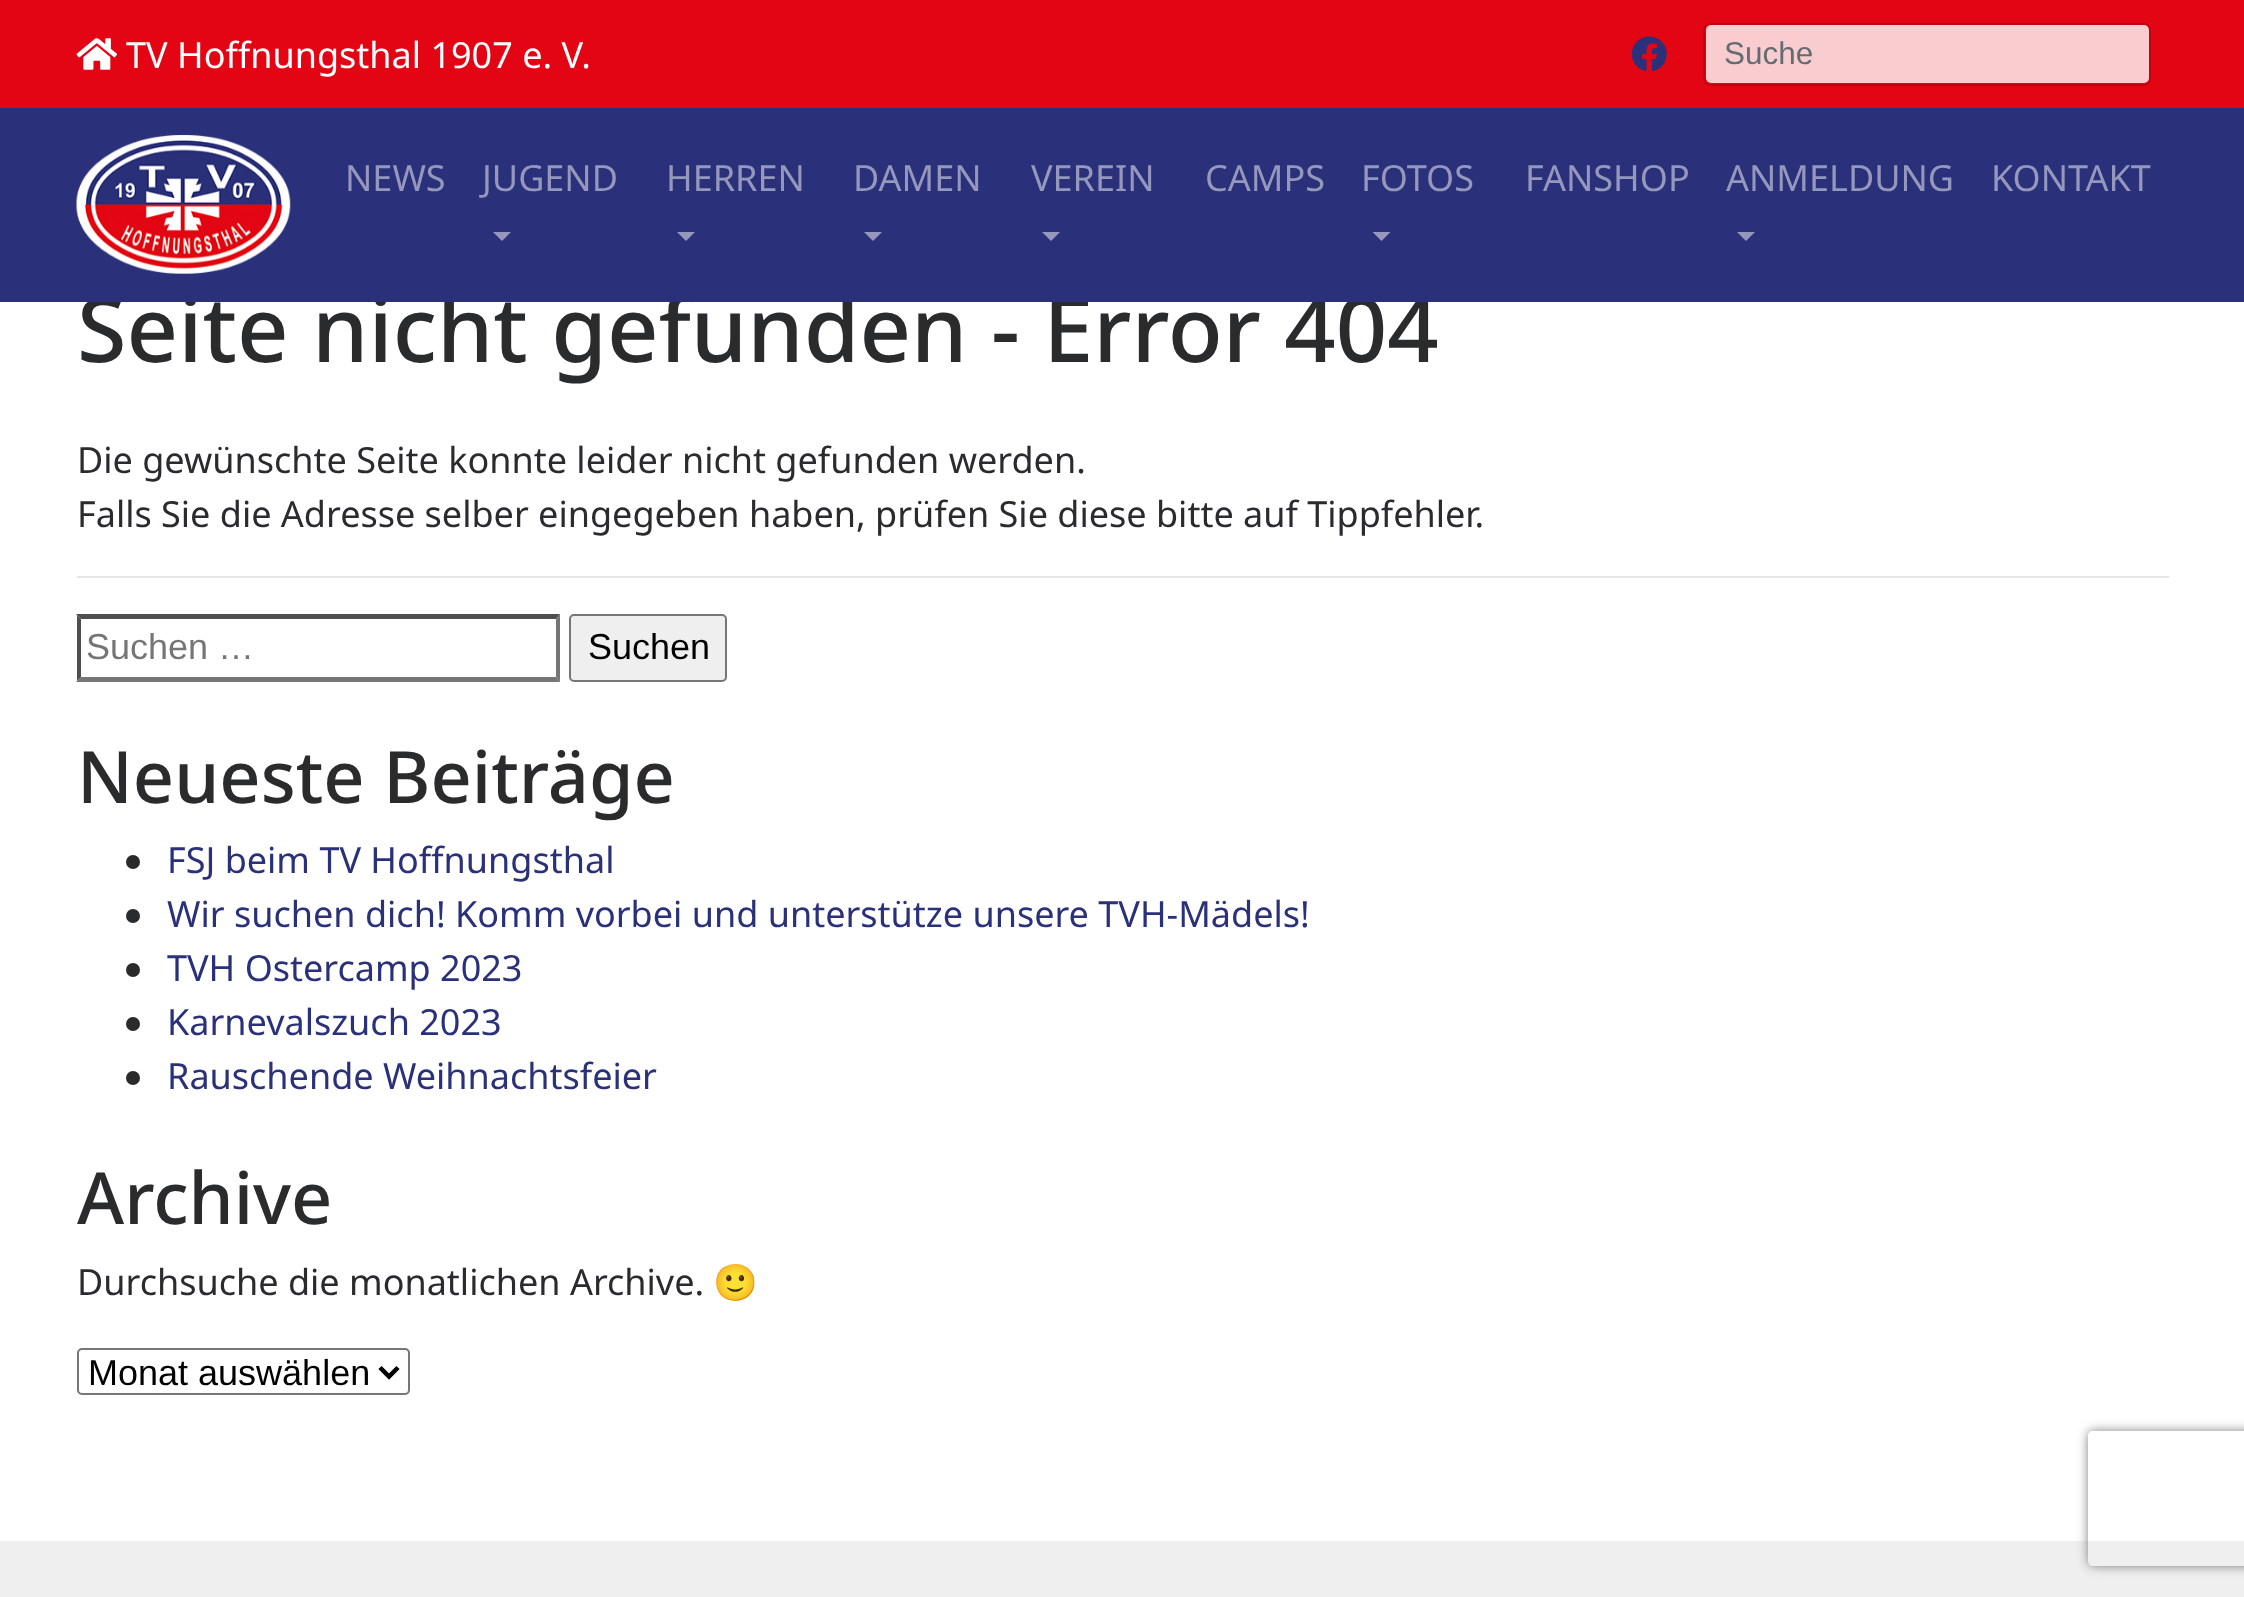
<svg xmlns="http://www.w3.org/2000/svg" width="2244" height="1597">
<defs>
<clipPath id="clip1"><rect x="77" y="279" width="2092" height="1172"/></clipPath>
<clipPath id="clip2"><path d="M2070 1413h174v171h-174zm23 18h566c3 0 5 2 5 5v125c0 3-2 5-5 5h-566c-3 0-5-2-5-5v-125c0-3 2-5 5-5z" clip-rule="evenodd"/></clipPath>
</defs>
<rect width="100%" height="100%" fill="#fff"/>
<rect width="2244" height="108" fill="#e30513"/>
<image x="76" y="38" width="41" height="32" href="media/1.png"/>
<text x="126" y="68" style="font-family:Noto Sans;font-size:36px;fill:#fff">TV Hoffnungsthal 1907 e. V.</text>
<image x="1631" y="36" width="36" height="36" href="media/2.png"/>
<rect x="1706" y="25" width="443" height="58" rx="5" fill="#f9cdd0"/>
<rect x="1704" y="24" width="446" height="61" rx="6" fill="none" stroke="#00000026" stroke-width="2"/>
<text x="1724" y="64" style="font-family:Liberation Sans;font-size:31.5px;fill:#636c72">Suche</text>
<text x="77" y="362" style="font-family:Noto Sans;font-size:90px;font-weight:500;fill:#292b2c">Seite nicht gefunden - Error 404</text>
<rect y="108" width="2244" height="194" fill="#2a3079"/>
<image x="76" y="135" width="215" height="139" href="media/3.png"/>
<text x="345" y="191" style="font-family:Noto Sans;font-size:36px;fill:#9598bc">NEWS</text>
<text x="482" y="191" style="font-family:Noto Sans;font-size:36px;fill:#9598bc">JUGEND</text>
<path d="M493 232h18l-9 9z" fill="#9598bc"/>
<text x="666" y="191" style="font-family:Noto Sans;font-size:36px;fill:#9598bc">HERREN</text>
<path d="M677 232h18l-9 9z" fill="#9598bc"/>
<text x="853" y="191" style="font-family:Noto Sans;font-size:36px;fill:#9598bc">DAMEN</text>
<path d="M864 232h18l-9 9z" fill="#9598bc"/>
<text x="1031" y="191" style="font-family:Noto Sans;font-size:36px;fill:#9598bc">VEREIN</text>
<path d="M1042 232h18l-9 9z" fill="#9598bc"/>
<text x="1205" y="191" style="font-family:Noto Sans;font-size:36px;fill:#9598bc">CAMPS</text>
<text x="1361" y="191" style="font-family:Noto Sans;font-size:36px;fill:#9598bc">FOTOS</text>
<path d="M1372.5 232h18l-9 9z" fill="#9598bc"/>
<text x="1525" y="191" style="font-family:Noto Sans;font-size:36px;fill:#9598bc">FANSHOP</text>
<text x="1726" y="191" style="font-family:Noto Sans;font-size:36px;fill:#9598bc">ANMELDUNG</text>
<path d="M1737 232h18l-9 9z" fill="#9598bc"/>
<text x="1991" y="191" style="font-family:Noto Sans;font-size:36px;fill:#9598bc">KONTAKT</text>
<text x="77" y="473" style="font-family:Noto Sans;font-size:36px;fill:#292b2c">Die gewünschte Seite konnte leider nicht gefunden werden.</text>
<text x="77" y="527" style="font-family:Noto Sans;font-size:36px;fill:#292b2c">Falls Sie die Adresse selber eingegeben haben, prüfen Sie diese bitte auf Tippfehler.</text>
<rect x="77" y="576" width="2092" height="2" fill="#e6e6e6"/>
<path d="M76 614h484l-4 5h-475z" fill="#4f4f4f"/>
<path d="M560 614v68l-4-5v-58z" fill="#767676"/>
<path d="M560 682h-484l5-5h475z" fill="#767676"/>
<g clip-path="url(#clip1)">
<path d="M76 682v-68l5 5v58z" fill="#4f4f4f"/>
</g>
<text x="86" y="659" style="font-family:Liberation Sans;font-size:36px;fill:#757575">Suchen …</text>
<rect x="570" y="615" width="156" height="66" rx="4" fill="#efefef" stroke="#767676" stroke-width="2"/>
<text x="588" y="659" style="font-family:Liberation Sans;font-size:36px;fill:#000">Suchen</text>
<text x="77" y="803" style="font-family:Noto Sans;font-size:72px;font-weight:500;fill:#292b2c">Neueste Beiträge</text>
<circle cx="133" cy="862" r="7" fill="#292b2c"/>
<text x="167" y="873" style="font-family:Noto Sans;font-size:36px;fill:#2a3079">FSJ beim TV Hoffnungsthal</text>
<circle cx="133" cy="916" r="7" fill="#292b2c"/>
<text x="167" y="927" style="font-family:Noto Sans;font-size:36px;fill:#2a3079">Wir suchen dich! Komm vorbei und unterstütze unsere TVH-Mädels!</text>
<circle cx="133" cy="970" r="7" fill="#292b2c"/>
<text x="167" y="981" style="font-family:Noto Sans;font-size:36px;fill:#2a3079">TVH Ostercamp 2023</text>
<circle cx="133" cy="1024" r="7" fill="#292b2c"/>
<text x="167" y="1035" style="font-family:Noto Sans;font-size:36px;fill:#2a3079">Karnevalszuch 2023</text>
<circle cx="133" cy="1078" r="7" fill="#292b2c"/>
<text x="167" y="1089" style="font-family:Noto Sans;font-size:36px;fill:#2a3079">Rauschende Weihnachtsfeier</text>
<text x="77" y="1224" style="font-family:Noto Sans;font-size:72px;font-weight:500;fill:#292b2c">Archive</text>
<text x="77" y="1295" style="font-family:Noto Sans;font-size:36px;fill:#292b2c">Durchsuche die monatlichen Archive.</text>
<text x="713" y="1295" style="font-family:Noto Color Emoji;font-size:36px;fill:#292b2c">🙂</text>
<rect x="78" y="1349" width="331" height="45" rx="4" fill="none" stroke="#767676" stroke-width="2"/>
<path d="M380 1367.5l9 9l9-9" fill="none" stroke="#000" stroke-width="4.5"/>
<text x="88" y="1385" style="font-family:Liberation Sans;font-size:36px;fill:#000">Monat auswählen</text>
<rect y="1541" width="2244" height="56" fill="#efefef"/>
<g clip-path="url(#clip2)">
<rect x="2088" y="1431" width="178" height="135" rx="5" fill="#808080" filter="blur(5.5px)"/>
</g>
</svg>
